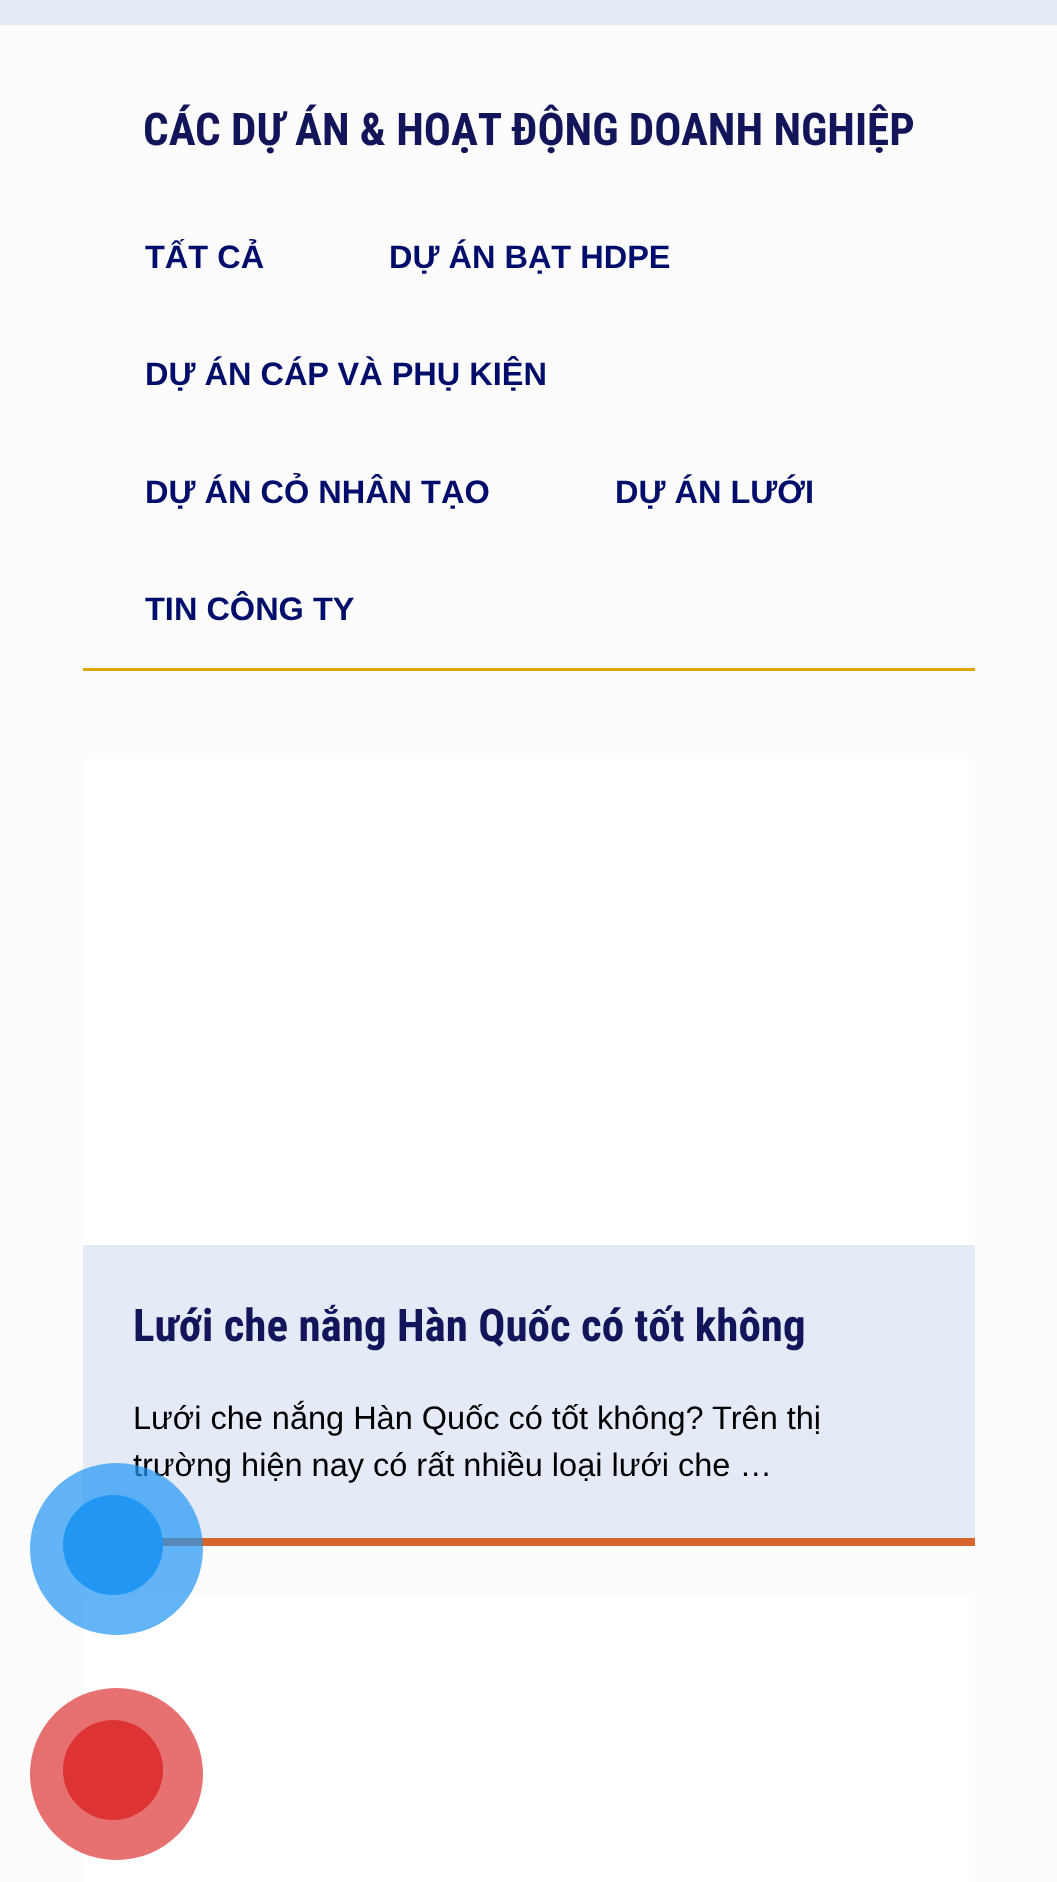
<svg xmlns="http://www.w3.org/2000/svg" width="1057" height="1882">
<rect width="100%" height="100%" fill="#fcfcfc"/>
<rect width="1057" height="25" fill="#e4ebf7"/>
<text x="143" y="145" style="font-family:Roboto Condensed;font-size:45px;font-weight:bold;fill:#121559">CÁC DỰ ÁN &amp; HOẠT ĐỘNG DOANH NGHIỆP</text>
<rect x="83" y="668" width="892" height="3" fill="#daa707"/>
<text x="145" y="268" style="font-family:Liberation Sans;font-size:32.5px;font-weight:bold;fill:#000d6b">TẤT CẢ</text>
<text x="389" y="268" style="font-family:Liberation Sans;font-size:32.5px;font-weight:bold;fill:#000d6b">DỰ ÁN BẠT HDPE</text>
<text x="145" y="385" style="font-family:Liberation Sans;font-size:32.5px;font-weight:bold;fill:#000d6b">DỰ ÁN CÁP VÀ PHỤ KIỆN</text>
<text x="145" y="503" style="font-family:Liberation Sans;font-size:32.5px;font-weight:bold;fill:#000d6b">DỰ ÁN CỎ NHÂN TẠO</text>
<text x="615" y="503" style="font-family:Liberation Sans;font-size:32.5px;font-weight:bold;fill:#000d6b">DỰ ÁN LƯỚI</text>
<text x="145" y="620" style="font-family:Liberation Sans;font-size:32.5px;font-weight:bold;fill:#000d6b">TIN CÔNG TY</text>
<rect x="83" y="758" width="892" height="487" fill="#fff"/>
<rect x="83" y="1245" width="892" height="293" fill="#e4ebf7"/>
<rect x="162" y="1538" width="813" height="8" fill="#d7632d"/>
<text x="133" y="1341" style="font-family:Roboto Condensed;font-size:45px;font-weight:bold;fill:#121559">Lưới che nắng Hàn Quốc có tốt không</text>
<text x="133" y="1429" style="font-family:Liberation Sans;font-size:32.5px;fill:#000">Lưới che nắng Hàn Quốc có tốt không? Trên thị</text>
<text x="133" y="1476" style="font-family:Liberation Sans;font-size:32.5px;fill:#000">trường hiện nay có rất nhiều loại lưới che …</text>
<rect x="83" y="1595" width="892" height="287" fill="#fff"/>
<rect x="30" y="1463" width="173" height="172" rx="86" fill="#2196f3b3"/>
<circle cx="113" cy="1545" r="50" fill="#2196f3"/>
<rect x="30" y="1688" width="173" height="172" rx="86" fill="#dd3333b3"/>
<circle cx="113" cy="1770" r="50" fill="#d33"/>
</svg>
